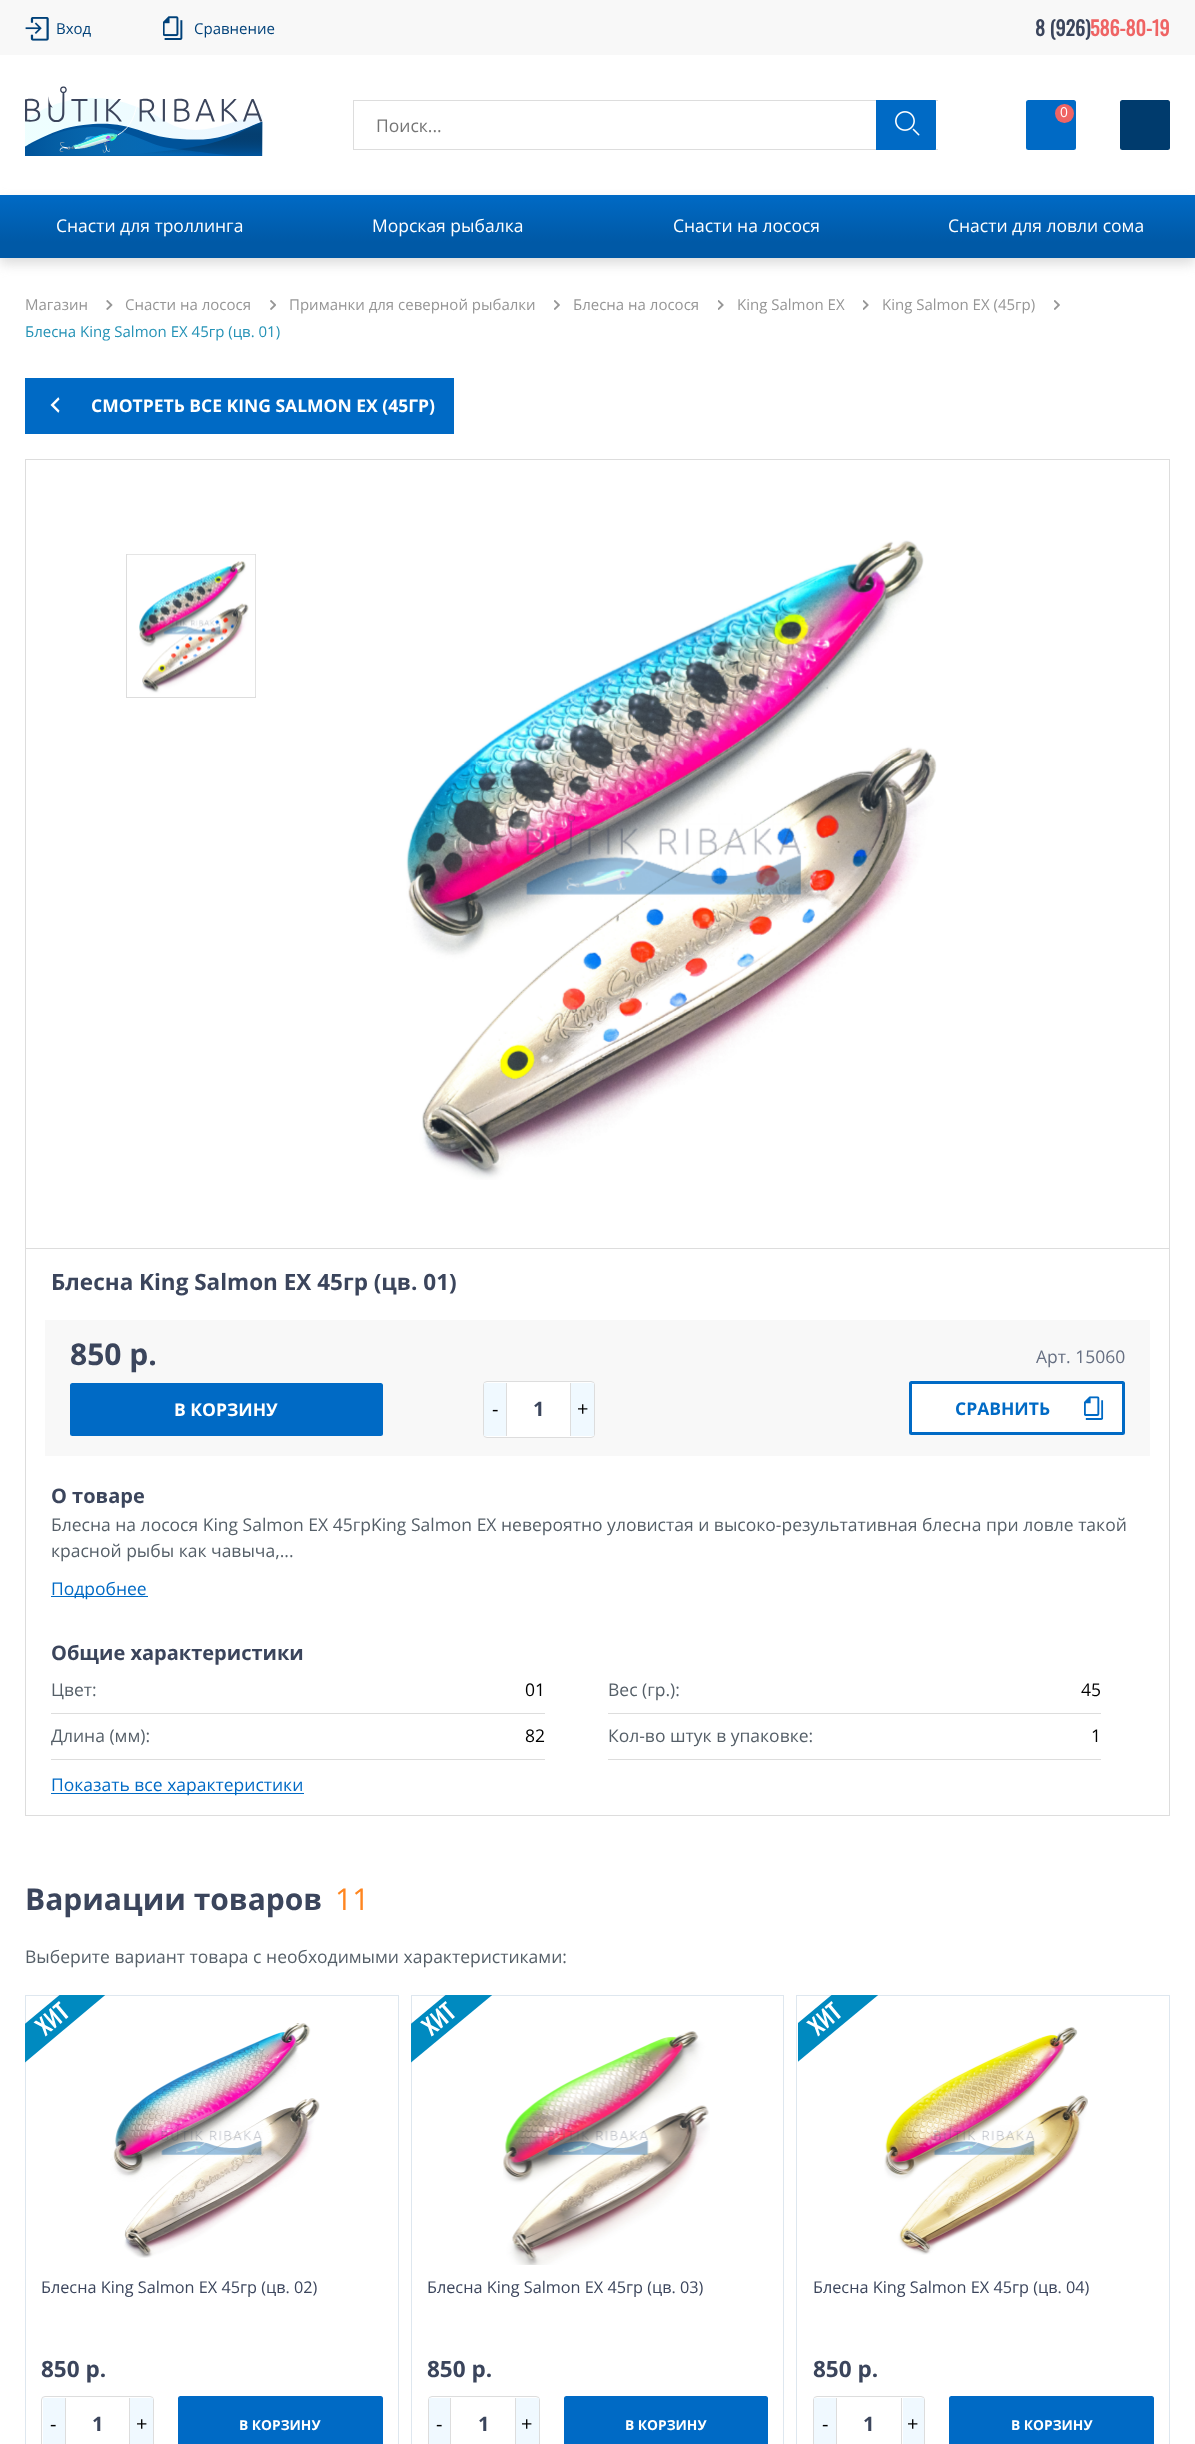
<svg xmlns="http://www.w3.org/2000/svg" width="1195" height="2444">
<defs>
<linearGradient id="g1" gradientUnits="userSpaceOnUse" x1="149" y1="195" x2="149" y2="258"><stop offset="0" stop-color="#006ac5"/><stop offset="0.75" stop-color="#0059a6"/></linearGradient>
<linearGradient id="g2" gradientUnits="userSpaceOnUse" x1="448" y1="195" x2="448" y2="258"><stop offset="0" stop-color="#006ac5"/><stop offset="0.75" stop-color="#0059a6"/></linearGradient>
<linearGradient id="g3" gradientUnits="userSpaceOnUse" x1="747" y1="195" x2="747" y2="258"><stop offset="0" stop-color="#006ac5"/><stop offset="0.75" stop-color="#0059a6"/></linearGradient>
<linearGradient id="g4" gradientUnits="userSpaceOnUse" x1="1046" y1="195" x2="1046" y2="258"><stop offset="0" stop-color="#006ac5"/><stop offset="0.75" stop-color="#0059a6"/></linearGradient>
<clipPath id="clip1"><rect x="25" y="1995" width="88" height="75"/></clipPath>
<clipPath id="clip2"><rect x="411" y="1995" width="87" height="75"/></clipPath>
<clipPath id="clip3"><rect x="798" y="1995" width="86" height="75"/></clipPath>
</defs>
<rect width="100%" height="100%" fill="#fff"/>
<rect width="1195" height="55" fill="#f8f8f8"/>
<image x="25" y="17" width="24" height="24" href="media/1.png"/>
<text x="56" y="34" style="font-family:Open Sans;font-size:15px;fill:#004179">Вход</text>
<image x="163" y="16" width="20" height="24" href="media/2.png"/>
<text x="194" y="34" style="font-family:Open Sans;font-size:15px;fill:#004179">Сравнение</text>
<text x="1035" y="36" style="font-family:Oswald;font-size:20px;font-weight:bold;fill:#3b455c">8 (926)</text>
<text x="1090" y="36" style="font-family:Oswald;font-size:20px;font-weight:bold;fill:#ef6464">586-80-19</text>
<image x="25" y="86" width="238" height="70" href="media/3.png"/>
<rect x="1026" y="100" width="50" height="50" rx="2.5" fill="#006ac5"/>
<circle cx="1064.5" cy="113.5" r="9.5" fill="#ef6464"/>
<text x="1060" y="117" style="font-family:Open Sans;font-size:13.75px;fill:#fff">0</text>
<rect x="1120" y="100" width="50" height="50" rx="2.5" fill="#003b6d"/>
<rect x="353" y="100" width="585" height="1" fill="#ddd"/>
<rect x="353" y="149" width="585" height="1" fill="#ddd"/>
<rect x="353" y="100" width="1" height="50" fill="#ddd"/>
<text x="376" y="132" style="font-family:Open Sans;font-size:17.5px;fill:#757575">Поиск...</text>
<path d="M876 100h59c.5 0 1 .5 1 1v48c0 .5-.5 1-1 1h-59z" fill="#006ac5"/>
<image x="895" y="111" width="25" height="25" href="media/4.png"/>
<rect y="201" width="1195" height="63" fill="#ddd" filter="blur(6px)"/>
<rect y="195" width="299" height="63" fill="url(#g1)"/>
<text x="56" y="232" style="font-family:Open Sans;font-size:17.5px;fill:#fff">Снасти для троллинга</text>
<rect x="299" y="195" width="299" height="63" fill="url(#g2)"/>
<text x="372" y="232" style="font-family:Open Sans;font-size:17.5px;fill:#fff">Морская рыбалка</text>
<rect x="598" y="195" width="298" height="63" fill="url(#g3)"/>
<text x="673" y="232" style="font-family:Open Sans;font-size:17.5px;fill:#fff">Снасти на лосося</text>
<rect x="896" y="195" width="299" height="63" fill="url(#g4)"/>
<text x="948" y="232" style="font-family:Open Sans;font-size:17.5px;fill:#fff">Снасти для ловли сома</text>
<image x="106" y="300" width="7" height="10" href="media/5.png"/>
<text x="25" y="310" style="font-family:Open Sans;font-size:15px;fill:#969696">Магазин</text>
<image x="270" y="300" width="6" height="10" href="media/6.png"/>
<text x="125" y="310" style="font-family:Open Sans;font-size:15px;fill:#969696">Снасти на лосося</text>
<image x="554" y="300" width="6" height="10" href="media/7.png"/>
<text x="289" y="310" style="font-family:Open Sans;font-size:15px;fill:#969696">Приманки для северной рыбалки</text>
<image x="718" y="300" width="6" height="10" href="media/8.png"/>
<text x="573" y="310" style="font-family:Open Sans;font-size:15px;fill:#969696">Блесна на лосося</text>
<image x="863" y="300" width="6" height="10" href="media/8.png"/>
<text x="737" y="310" style="font-family:Open Sans;font-size:15px;fill:#969696">King Salmon EX</text>
<image x="1054" y="300" width="6" height="10" href="media/7.png"/>
<text x="882" y="310" style="font-family:Open Sans;font-size:15px;fill:#969696">King Salmon EX (45гр)</text>
<text x="25" y="337" style="font-family:Open Sans;font-size:15px;fill:#2492b6">Блесна King Salmon EX 45гр (цв. 01)</text>
<rect x="25" y="378" width="429" height="56" fill="#006ac5"/>
<image x="50" y="397" width="10" height="16" href="media/9.png"/>
<text x="91" y="412" style="font-family:Open Sans;font-size:17.5px;font-weight:bold;fill:#fff">СМОТРЕТЬ ВСЕ KING SALMON EX (45ГР)</text>
<rect x="25.5" y="459.5" width="1144" height="789" fill="none" stroke="#ddd"/>
<rect x="126.5" y="554.5" width="129" height="143" fill="none" stroke="#ddd"/>
<image x="127" y="554" width="129" height="142" href="media/10.png"/>
<image x="406" y="540" width="531" height="640" href="media/11.png"/>
<rect x="1169" y="1249" width="1" height="567" fill="#ddd"/>
<rect x="25" y="1815" width="1145" height="1" fill="#ddd"/>
<rect x="25" y="1249" width="1" height="567" fill="#ddd"/>
<text x="51" y="1290" style="font-family:Open Sans;font-size:22.5px;font-weight:bold;fill:#3b455c">Блесна King Salmon EX 45гр (цв. 01)</text>
<rect x="45" y="1320" width="1105" height="136" fill="#f8f8f8"/>
<text x="70" y="1365" style="font-family:Open Sans;font-size:30px;font-weight:bold;fill:#3b455c">850 р.</text>
<text x="1036" y="1363" style="font-family:Open Sans;font-size:17.5px;fill:#666f82">Арт. 15060</text>
<rect x="70" y="1383" width="313" height="53" rx="2.5" fill="#006ac5"/>
<text x="174" y="1416" style="font-family:Open Sans;font-size:17.5px;font-weight:bold;fill:#fff">В КОРЗИНУ</text>
<rect x="483.5" y="1381.5" width="111" height="56" rx="3.5" fill="#fff" stroke="#ddd"/>
<rect x="484" y="1383" width="22" height="53" fill="#f0f9ff"/>
<text x="492" y="1416" style="font-family:Open Sans;font-size:20px;fill:#000">-</text>
<rect x="570" y="1383" width="1" height="53" fill="#ddd"/>
<rect x="506" y="1383" width="1" height="53" fill="#ddd"/>
<text x="533" y="1416" style="font-family:Open Sans;font-size:20px;font-weight:bold;fill:#3b455c">1</text>
<rect x="571" y="1383" width="23" height="53" fill="#f0f9ff"/>
<text x="577" y="1416" style="font-family:Open Sans;font-size:20px;fill:#000">+</text>
<rect x="910.5" y="1382.5" width="213" height="51" rx="1" fill="#fff" stroke="#006ac5" stroke-width="3"/>
<text x="955" y="1415" style="font-family:Open Sans;font-size:17.5px;font-weight:bold;fill:#006ac5">СРАВНИТЬ</text>
<image x="1084" y="1396" width="20" height="24" href="media/12.png"/>
<text x="51" y="1503" style="font-family:Open Sans;font-size:20px;font-weight:bold;fill:#3b455c">О товаре</text>
<text x="51" y="1531" style="font-family:Open Sans;font-size:17.5px;fill:#555f68">Блесна на лосося King Salmon EX 45грKing Salmon EX невероятно уловистая и высоко-результативная блесна при ловле такой</text>
<text x="51" y="1557" style="font-family:Open Sans;font-size:17.5px;fill:#555f68">красной рыбы как чавыча,...</text>
<rect x="51" y="1596" width="97" height="1" fill="#006ac5"/>
<text x="51" y="1595" style="font-family:Open Sans;font-size:17.5px;fill:#006ac5">Подробнее</text>
<text x="51" y="1660" style="font-family:Open Sans;font-size:20px;font-weight:bold;fill:#3b455c">Общие характеристики</text>
<rect x="51" y="1713" width="494" height="1" fill="#ddd"/>
<text x="51" y="1696" style="font-family:Open Sans;font-size:17.5px;fill:#555f68">Цвет:</text>
<text x="525" y="1696" style="font-family:Open Sans;font-size:17.5px;fill:#000">01</text>
<rect x="608" y="1713" width="493" height="1" fill="#ddd"/>
<text x="608" y="1696" style="font-family:Open Sans;font-size:17.5px;fill:#555f68">Вес (гр.):</text>
<text x="1081" y="1696" style="font-family:Open Sans;font-size:17.5px;fill:#000">45</text>
<rect x="51" y="1759" width="494" height="1" fill="#ddd"/>
<text x="51" y="1742" style="font-family:Open Sans;font-size:17.5px;fill:#555f68">Длина (мм):</text>
<text x="525" y="1742" style="font-family:Open Sans;font-size:17.5px;fill:#000">82</text>
<rect x="608" y="1759" width="493" height="1" fill="#ddd"/>
<text x="608" y="1742" style="font-family:Open Sans;font-size:17.5px;fill:#555f68">Кол-во штук в упаковке:</text>
<text x="1091" y="1742" style="font-family:Open Sans;font-size:17.5px;fill:#000">1</text>
<rect x="51" y="1793" width="253" height="1" fill="#006ac5"/>
<text x="51" y="1791" style="font-family:Open Sans;font-size:17.5px;fill:#006ac5">Показать все характеристики</text>
<text x="25" y="1910" style="font-family:Open Sans;font-size:30px;font-weight:bold;fill:#3b455c">Вариации товаров</text>
<text x="335" y="1910" style="font-family:Open Sans;font-size:30px;fill:#ff8620">11</text>
<text x="25" y="1963" style="font-family:Open Sans;font-size:17.5px;fill:#555f68">Выберите вариант товара с необходимыми характеристиками:</text>
<rect x="25.5" y="1995.5" width="373" height="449" fill="none" stroke="#dee7ef"/>
<g clip-path="url(#clip1)">
<path d="M92 1968l18 23l-94 79l-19-23z" fill="#008ac0"/>
</g>
<path d="M42 2027l-8.5-4.5l2.5-2l5.5 3l-2-6l2-1.5l3.5 9l8.5 4.5l-2.5 2l-5.5-3l2 6.5l-2 1.5zm1-12.5l2-1.5l7.5 8.5l-3.5-12l1.5-1.5l12 14l-2 2l-7.5-9l3.5 12l-1.5 1.5zm13-7.5l-2.5 2l-1.5-2l7-6l1.5 2l-2 2l10 12l-2.5 2z" fill="#fff"/>
<image x="110" y="2023" width="210" height="235" href="media/13.png"/>
<text x="41" y="2293" style="font-family:Open Sans;font-size:16.25px;fill:#3b455c">Блесна King Salmon EX 45гр (цв. 02)</text>
<text x="41" y="2377" style="font-family:Open Sans;font-size:22.5px;font-weight:bold;fill:#3b455c">850 р.</text>
<rect x="41.5" y="2396.5" width="112" height="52" rx="3.5" fill="none" stroke="#ddd"/>
<rect x="43" y="2398" width="22" height="46" fill="#f0f9ff"/>
<text x="50" y="2431" style="font-family:Open Sans;font-size:20px;fill:#000">-</text>
<rect x="129" y="2398" width="1" height="46" fill="#ddd"/>
<rect x="65" y="2398" width="1" height="46" fill="#ddd"/>
<text x="92" y="2431" style="font-family:Open Sans;font-size:20px;font-weight:bold;fill:#3b455c">1</text>
<rect x="130" y="2398" width="23" height="46" fill="#f0f9ff"/>
<text x="136" y="2431" style="font-family:Open Sans;font-size:20px;fill:#000">+</text>
<rect x="178" y="2396" width="205" height="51" rx="2.5" fill="#006ac5"/>
<text x="239" y="2430" style="font-family:Open Sans;font-size:13.75px;font-weight:bold;fill:#fff">В КОРЗИНУ</text>
<rect x="411.5" y="1995.5" width="372" height="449" fill="none" stroke="#dee7ef"/>
<g clip-path="url(#clip2)">
<path d="M478 1968l19 23l-95 79l-19-23z" fill="#008ac0"/>
</g>
<path d="M428 2027l-8-4.5l2-2l5.5 3l-2-6l2.5-1.5l3 9l9 4.5l-2.5 2l-6-3l2.5 6.5l-2.5 1.5zm1.5-12.5l2-1.5l7.5 8.5l-3.5-12l1.5-1.5l12 14l-2.5 2l-7.5-9l4 12l-2 1.5zm12.5-7.5l-2 2l-1.5-2l7-6l1.5 2l-2.5 2l10.5 12l-2.5 2z" fill="#fff"/>
<image x="503" y="2031" width="207" height="234" href="media/14.png"/>
<text x="427" y="2293" style="font-family:Open Sans;font-size:16.25px;fill:#3b455c">Блесна King Salmon EX 45гр (цв. 03)</text>
<text x="427" y="2377" style="font-family:Open Sans;font-size:22.5px;font-weight:bold;fill:#3b455c">850 р.</text>
<rect x="428.5" y="2396.5" width="111" height="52" rx="3.5" fill="none" stroke="#ddd"/>
<rect x="429" y="2398" width="21" height="46" fill="#f0f9ff"/>
<text x="436" y="2431" style="font-family:Open Sans;font-size:20px;fill:#000">-</text>
<rect x="515" y="2398" width="1" height="46" fill="#ddd"/>
<rect x="450" y="2398" width="1" height="46" fill="#ddd"/>
<text x="478" y="2431" style="font-family:Open Sans;font-size:20px;font-weight:bold;fill:#3b455c">1</text>
<rect x="516" y="2398" width="23" height="46" fill="#f0f9ff"/>
<text x="521" y="2431" style="font-family:Open Sans;font-size:20px;fill:#000">+</text>
<rect x="564" y="2396" width="204" height="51" rx="2.5" fill="#006ac5"/>
<text x="625" y="2430" style="font-family:Open Sans;font-size:13.75px;font-weight:bold;fill:#fff">В КОРЗИНУ</text>
<rect x="796.5" y="1995.5" width="373" height="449" fill="none" stroke="#dee7ef"/>
<g clip-path="url(#clip3)">
<path d="M864 1968l19 23l-95 79l-19-23z" fill="#008ac0"/>
</g>
<path d="M814.5 2027l-8.5-4.5l2.5-2l5.5 3l-2-6l2-1.5l3.5 9l8.5 4.5l-2.5 2l-5.5-3l2 6.5l-2 1.5zm1-12.5l2-1.5l7.5 8.5l-3.5-12l1.5-1.5l12 14l-2 2l-7.5-9l3.5 12l-1.5 1.5zm13-7.5l-2.5 2l-1.5-2l7-6l1.5 2l-2 2l10 12l-2.5 2z" fill="#fff"/>
<image x="884" y="2027" width="204" height="228" href="media/15.png"/>
<text x="813" y="2293" style="font-family:Open Sans;font-size:16.25px;fill:#3b455c">Блесна King Salmon EX 45гр (цв. 04)</text>
<text x="813" y="2377" style="font-family:Open Sans;font-size:22.5px;font-weight:bold;fill:#3b455c">850 р.</text>
<rect x="813.5" y="2396.5" width="111" height="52" rx="3.5" fill="none" stroke="#ddd"/>
<rect x="814" y="2398" width="22" height="46" fill="#f0f9ff"/>
<text x="822" y="2431" style="font-family:Open Sans;font-size:20px;fill:#000">-</text>
<rect x="901" y="2398" width="1" height="46" fill="#ddd"/>
<rect x="836" y="2398" width="1" height="46" fill="#ddd"/>
<text x="863" y="2431" style="font-family:Open Sans;font-size:20px;font-weight:bold;fill:#3b455c">1</text>
<rect x="903" y="2398" width="21" height="46" fill="#f0f9ff"/>
<text x="907" y="2431" style="font-family:Open Sans;font-size:20px;fill:#000">+</text>
<rect x="949" y="2396" width="205" height="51" rx="2.5" fill="#006ac5"/>
<text x="1011" y="2430" style="font-family:Open Sans;font-size:13.75px;font-weight:bold;fill:#fff">В КОРЗИНУ</text>
</svg>
